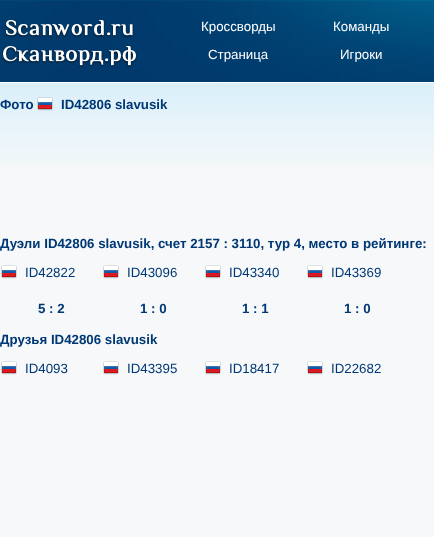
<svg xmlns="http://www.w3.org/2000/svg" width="434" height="537">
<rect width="100%" height="100%" fill="#fff"/>
<image x="0" y="0" width="434" height="82" href="media/1.png"/>
<image x="2" y="20" width="135" height="48" href="media/2.png"/>
<text x="201" y="31" style="font-family:Liberation Sans;font-size:13.3px;fill:#fff">Кроссворды</text>
<text x="333" y="31" style="font-family:Liberation Sans;font-size:13.3px;fill:#fff">Команды</text>
<text x="208" y="59" style="font-family:Liberation Sans;font-size:13.3px;fill:#fff">Страница</text>
<text x="340" y="59" style="font-family:Liberation Sans;font-size:13.3px;fill:#fff">Игроки</text>
<rect y="165" width="434" height="372" fill="#f6f8f9"/>
<image x="0" y="83" width="434" height="82" href="media/3.png"/>
<text x="0" y="109" style="font-family:Liberation Sans;font-size:13.3px;font-weight:bold;fill:#003875">Фото</text>
<image x="37" y="97" width="16" height="14" href="media/4.png"/>
<text x="61" y="109" style="font-family:Liberation Sans;font-size:13.3px;font-weight:bold;fill:#003875">ID42806 slavusik</text>
<text x="0" y="248" style="font-family:Liberation Sans;font-size:13.3px;font-weight:bold;fill:#003875">Дуэли ID42806 slavusik, счет 2157 : 3110, тур 4, место в рейтинге:</text>
<image x="1" y="265" width="16" height="14" href="media/5.png"/>
<text x="25" y="277" style="font-family:Liberation Sans;font-size:13.3px;fill:#003875">ID42822</text>
<text x="38" y="313" style="font-family:Liberation Sans;font-size:13.3px;font-weight:bold;fill:#003875">5 : 2</text>
<image x="103" y="265" width="16" height="14" href="media/5.png"/>
<text x="127" y="277" style="font-family:Liberation Sans;font-size:13.3px;fill:#003875">ID43096</text>
<text x="140" y="313" style="font-family:Liberation Sans;font-size:13.3px;font-weight:bold;fill:#003875">1 : 0</text>
<image x="205" y="265" width="16" height="14" href="media/5.png"/>
<text x="229" y="277" style="font-family:Liberation Sans;font-size:13.3px;fill:#003875">ID43340</text>
<text x="242" y="313" style="font-family:Liberation Sans;font-size:13.3px;font-weight:bold;fill:#003875">1 : 1</text>
<image x="307" y="265" width="16" height="14" href="media/5.png"/>
<text x="331" y="277" style="font-family:Liberation Sans;font-size:13.3px;fill:#003875">ID43369</text>
<text x="344" y="313" style="font-family:Liberation Sans;font-size:13.3px;font-weight:bold;fill:#003875">1 : 0</text>
<text x="0" y="344" style="font-family:Liberation Sans;font-size:13.3px;font-weight:bold;fill:#003875">Друзья ID42806 slavusik</text>
<image x="1" y="361" width="16" height="14" href="media/5.png"/>
<text x="25" y="373" style="font-family:Liberation Sans;font-size:13.3px;fill:#003875">ID4093</text>
<image x="103" y="361" width="16" height="14" href="media/5.png"/>
<text x="127" y="373" style="font-family:Liberation Sans;font-size:13.3px;fill:#003875">ID43395</text>
<image x="205" y="361" width="16" height="14" href="media/5.png"/>
<text x="229" y="373" style="font-family:Liberation Sans;font-size:13.3px;fill:#003875">ID18417</text>
<image x="307" y="361" width="16" height="14" href="media/5.png"/>
<text x="331" y="373" style="font-family:Liberation Sans;font-size:13.3px;fill:#003875">ID22682</text>
</svg>
